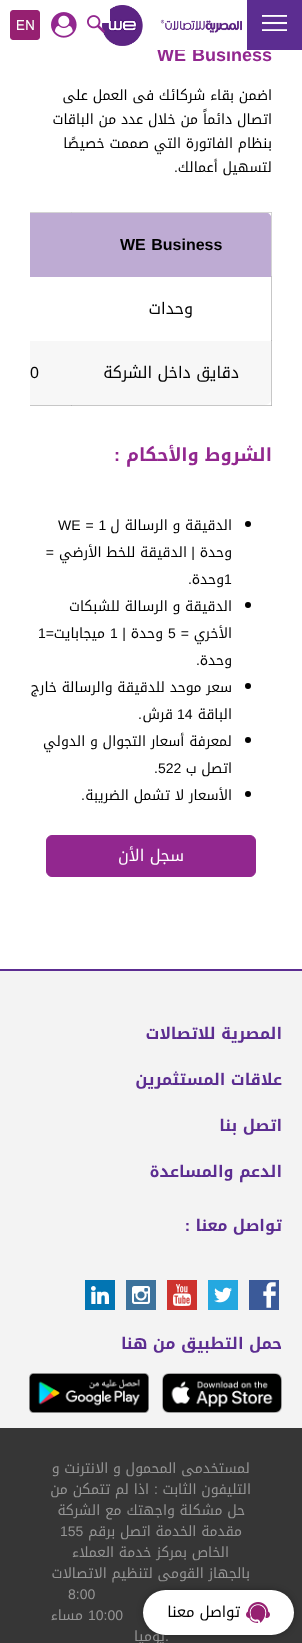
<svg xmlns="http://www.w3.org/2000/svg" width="302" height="1643">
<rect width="100%" height="100%" fill="#fff"/>
<rect width="302" height="50" fill="#00000080" filter="blur(0.5px)"/>
<text x="157" y="61" word-spacing="1" style="font-family:Liberation Sans;font-size:18px;font-weight:bold;fill:#92278f">WE Business</text>
<rect width="247" height="50" fill="#fff"/>
<rect x="247" width="55" height="50" fill="#5c2d91"/>
<image x="262" y="15" width="25" height="16" href="media/1.png"/>
<image x="102" y="5" width="140" height="41" href="media/2.png"/>
<rect x="102" y="9" width="8" height="14" fill="#fff"/>
<image x="87" y="15" width="18" height="18" href="media/3.png"/>
<image x="51" y="12" width="26" height="26" href="media/4.png"/>
<image x="10" y="10" width="30" height="30" href="media/5.png"/>
<text x="272" y="100" style="font-family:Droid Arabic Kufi;font-size:14px;direction:rtl;fill:#000">اضمن بقاء شركائك فى العمل على</text>
<text x="272" y="124" style="font-family:Droid Arabic Kufi;font-size:14px;direction:rtl;fill:#000">اتصال دائماً من خلال عدد من الباقات</text>
<text x="272" y="148" style="font-family:Droid Arabic Kufi;font-size:14px;direction:rtl;fill:#000">بنظام الفاتورة التي صممت خصيصًا</text>
<text x="272" y="172" style="font-family:Droid Arabic Kufi;font-size:14px;direction:rtl;fill:#000">لتسهيل أعمالك</text>
<text x="178" y="172" style="font-family:Liberation Sans;font-size:14px;direction:rtl;fill:#000">.</text>
<path d="M72 212h192c4.5 0 8 3.5 8 8v57h-200z" fill="#beabd3"/>
<rect x="72" y="212" width="200" height="1" fill="#ddd"/>
<rect x="271" y="212" width="1" height="64" fill="#ddd"/>
<rect x="271" y="276" width="1" height="65" fill="#c7c7c7"/>
<rect x="30" y="405" width="242" height="1" fill="#c7c7c7"/>
<rect x="30" y="212" width="42" height="1" fill="#d4d4d4"/>
<rect x="71" y="212" width="201" height="1" fill="#0000000a"/>
<rect x="271" y="212" width="1" height="65" fill="#0000000a"/>
<text x="120" y="250" word-spacing="1" style="font-family:Liberation Sans;font-size:16px;font-weight:bold;fill:#000">WE Business</text>
<rect x="30" y="213" width="42" height="64" fill="#beabd3"/>
<text x="193" y="314" style="font-family:Droid Arabic Kufi;font-size:16px;direction:rtl;fill:#000">وحدات</text>
<path d="M72 341h200v56c0 4.5-3.5 8-8 8h-192z" fill="#f7f7f7"/>
<rect x="271" y="340" width="1" height="66" fill="#c7c7c7"/>
<rect x="271" y="340" width="1" height="1" fill="#b3b3b3"/>
<rect x="271" y="405" width="1" height="1" fill="#b3b3b3"/>
<text x="239" y="378" style="font-family:Droid Arabic Kufi;font-size:16px;direction:rtl;fill:#000">دقايق داخل الشركة</text>
<rect x="30" y="341" width="42" height="64" fill="#f7f7f7"/>
<rect x="71" y="405" width="1" height="1" fill="#b3b3b3"/>
<text x="30" y="378" style="font-family:Liberation Sans;font-size:16px;fill:#000">0</text>
<text x="272" y="461" style="font-family:Droid Arabic Kufi;font-size:18px;font-weight:bold;direction:rtl;fill:#92278f">الشروط والأحكام</text>
<text x="120" y="461" style="font-family:Liberation Sans;font-size:18px;font-weight:bold;direction:rtl;fill:#92278f">:</text>
<circle cx="248" cy="524" r="3" fill="#000"/>
<text x="232" y="530" style="font-family:Droid Arabic Kufi;font-size:14px;direction:rtl;fill:#000">الدقيقة و الرسالة ل</text>
<text x="58" y="530" word-spacing="1" style="font-family:Liberation Sans;font-size:14px;fill:#000">WE = 1</text>
<text x="232" y="557" style="font-family:Droid Arabic Kufi;font-size:14px;direction:rtl;fill:#000">وحدة</text>
<text x="195" y="557" style="font-family:Liberation Sans;font-size:14px;direction:rtl;fill:#000">|</text>
<text x="187" y="557" style="font-family:Droid Arabic Kufi;font-size:14px;direction:rtl;fill:#000">الدقيقة للخط الأرضي</text>
<text x="54" y="557" style="font-family:Liberation Sans;font-size:14px;direction:rtl;fill:#000">=</text>
<text x="224" y="584" style="font-family:Liberation Sans;font-size:14px;fill:#000">1</text>
<text x="224" y="584" style="font-family:Droid Arabic Kufi;font-size:14px;direction:rtl;fill:#000">وحدة</text>
<text x="192" y="584" style="font-family:Liberation Sans;font-size:14px;direction:rtl;fill:#000">.</text>
<circle cx="248" cy="605" r="3" fill="#000"/>
<text x="232" y="611" style="font-family:Droid Arabic Kufi;font-size:14px;direction:rtl;fill:#000">الدقيقة و الرسالة للشبكات</text>
<text x="232" y="638" style="font-family:Droid Arabic Kufi;font-size:14px;direction:rtl;fill:#000">الأخري</text>
<text x="189" y="638" style="font-family:Liberation Sans;font-size:14px;direction:rtl;fill:#000">=</text>
<text x="168" y="638" style="font-family:Liberation Sans;font-size:14px;fill:#000">5</text>
<text x="163" y="638" style="font-family:Droid Arabic Kufi;font-size:14px;direction:rtl;fill:#000">وحدة</text>
<text x="126" y="638" style="font-family:Liberation Sans;font-size:14px;direction:rtl;fill:#000">|</text>
<text x="110" y="638" style="font-family:Liberation Sans;font-size:14px;fill:#000">1</text>
<text x="105" y="638" style="font-family:Droid Arabic Kufi;font-size:14px;direction:rtl;fill:#000">ميجابايت</text>
<text x="54" y="638" style="font-family:Liberation Sans;font-size:14px;direction:rtl;fill:#000">=</text>
<text x="38" y="638" style="font-family:Liberation Sans;font-size:14px;fill:#000">1</text>
<text x="232" y="665" style="font-family:Droid Arabic Kufi;font-size:14px;direction:rtl;fill:#000">وحدة</text>
<text x="200" y="665" style="font-family:Liberation Sans;font-size:14px;direction:rtl;fill:#000">.</text>
<circle cx="248" cy="686" r="3" fill="#000"/>
<text x="232" y="692" style="font-family:Droid Arabic Kufi;font-size:14px;direction:rtl;fill:#000">سعر موحد للدقيقة والرسالة خارج</text>
<text x="232" y="719" style="font-family:Droid Arabic Kufi;font-size:14px;direction:rtl;fill:#000">الباقة</text>
<text x="177" y="719" style="font-family:Liberation Sans;font-size:14px;fill:#000">14</text>
<text x="173" y="719" style="font-family:Droid Arabic Kufi;font-size:14px;direction:rtl;fill:#000">قرش</text>
<text x="142" y="719" style="font-family:Liberation Sans;font-size:14px;direction:rtl;fill:#000">.</text>
<circle cx="248" cy="740" r="3" fill="#000"/>
<text x="232" y="746" style="font-family:Droid Arabic Kufi;font-size:14px;direction:rtl;fill:#000">لمعرفة أسعار التجوال و الدولي</text>
<text x="232" y="773" style="font-family:Droid Arabic Kufi;font-size:14px;direction:rtl;fill:#000">اتصل ب</text>
<text x="154" y="773" style="font-family:Liberation Sans;font-size:14px;fill:#000">.522</text>
<circle cx="248" cy="794" r="3" fill="#000"/>
<text x="232" y="800" style="font-family:Droid Arabic Kufi;font-size:14px;direction:rtl;fill:#000">الأسعار لا تشمل الضريبة</text>
<text x="85" y="800" style="font-family:Liberation Sans;font-size:14px;direction:rtl;fill:#000">.</text>
<rect x="46.5" y="835.5" width="209" height="41" rx="5.5" fill="#92278f" stroke="#92278f"/>
<text x="184" y="861" style="font-family:Droid Arabic Kufi;font-size:16px;direction:rtl;fill:#fff">سجل الأن</text>
<rect y="971" width="302" height="457" fill="#f3f3f3"/>
<rect y="969" width="302" height="2" fill="#5c2d91"/>
<text x="282" y="1039" style="font-family:Droid Arabic Kufi;font-size:16px;font-weight:bold;direction:rtl;fill:#5c2d91">المصرية للاتصالات</text>
<text x="282" y="1085" style="font-family:Droid Arabic Kufi;font-size:16px;font-weight:bold;direction:rtl;fill:#5c2d91">علاقات المستثمرين</text>
<text x="282" y="1131" style="font-family:Droid Arabic Kufi;font-size:16px;font-weight:bold;direction:rtl;fill:#5c2d91">اتصل بنا</text>
<text x="282" y="1177" style="font-family:Droid Arabic Kufi;font-size:16px;font-weight:bold;direction:rtl;fill:#5c2d91">الدعم والمساعدة</text>
<text x="282" y="1231" style="font-family:Droid Arabic Kufi;font-size:16px;font-weight:bold;direction:rtl;fill:#5c2d91">تواصل معنا</text>
<text x="190" y="1231" style="font-family:Liberation Sans;font-size:16px;font-weight:bold;direction:rtl;fill:#5c2d91">:</text>
<rect x="249" y="1280" width="30" height="30" fill="#3b5a99"/>
<image x="263" y="1282" width="13" height="26" href="media/6.png"/>
<rect x="208" y="1280" width="30" height="30" fill="#25a8e0"/>
<image x="214" y="1287" width="18" height="16" href="media/7.png"/>
<rect x="167" y="1280" width="30" height="30" fill="#ce322e"/>
<image x="173" y="1284" width="18" height="22" href="media/8.png"/>
<rect x="126" y="1280" width="30" height="30" fill="#3d739c"/>
<image x="132" y="1286" width="18" height="18" href="media/9.png"/>
<rect x="85" y="1280" width="30" height="30" fill="#0275b3"/>
<image x="91" y="1286" width="18" height="18" href="media/10.png"/>
<text x="282" y="1349" style="font-family:Droid Arabic Kufi;font-size:16px;font-weight:bold;direction:rtl;fill:#5c2d91">حمل التطبيق من هنا</text>
<image x="162" y="1373" width="120" height="40" href="media/11.png"/>
<image x="29" y="1373" width="120" height="40" href="media/12.png"/>
<rect y="1428" width="302" height="215" fill="#363636"/>
<text x="250" y="1473" style="font-family:Droid Arabic Kufi;font-size:14px;direction:rtl;fill:#959595">لمستخدمى المحمول و الانترنت و</text>
<text x="251" y="1494" style="font-family:Droid Arabic Kufi;font-size:14px;direction:rtl;fill:#959595">التليفون الثابت</text>
<text x="158" y="1494" style="font-family:Liberation Sans;font-size:14px;direction:rtl;fill:#959595">:</text>
<text x="149" y="1494" style="font-family:Droid Arabic Kufi;font-size:14px;direction:rtl;fill:#959595">اذا لم تتمكن من</text>
<text x="245" y="1515" style="font-family:Droid Arabic Kufi;font-size:14px;direction:rtl;fill:#959595">حل مشكلة واجهتك مع الشركة</text>
<text x="242" y="1536" style="font-family:Droid Arabic Kufi;font-size:14px;direction:rtl;fill:#959595">مقدمة الخدمة اتصل برقم</text>
<text x="60" y="1536" style="font-family:Liberation Sans;font-size:14px;fill:#959595">155</text>
<text x="229" y="1557" style="font-family:Droid Arabic Kufi;font-size:14px;direction:rtl;fill:#959595">الخاص بمركز خدمة العملاء</text>
<text x="250" y="1578" style="font-family:Droid Arabic Kufi;font-size:14px;direction:rtl;fill:#959595">بالجهاز القومى لتنظيم الاتصالات</text>
<text x="68" y="1599" style="font-family:Liberation Sans;font-size:14px;fill:#959595">8:00</text>
<text x="88" y="1620" style="font-family:Liberation Sans;font-size:14px;fill:#959595">10:00</text>
<text x="83" y="1620" style="font-family:Droid Arabic Kufi;font-size:14px;direction:rtl;fill:#959595">مساء</text>
<text x="165" y="1641" style="font-family:Liberation Sans;font-size:14px;fill:#959595">.</text>
<text x="165" y="1641" style="font-family:Droid Arabic Kufi;font-size:14px;direction:rtl;fill:#959595">يوميا</text>
<rect x="143" y="1590" width="151" height="45" rx="22.5" fill="#0000004d" filter="blur(3px)"/>
<rect x="143" y="1590" width="151" height="45" rx="22.5" fill="#fff"/>
<image x="246" y="1602" width="24" height="21" href="media/13.png"/>
<text x="240" y="1617" style="font-family:'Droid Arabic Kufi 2';font-size:15px;direction:rtl;fill:#000">تواصل معنا</text>
</svg>
